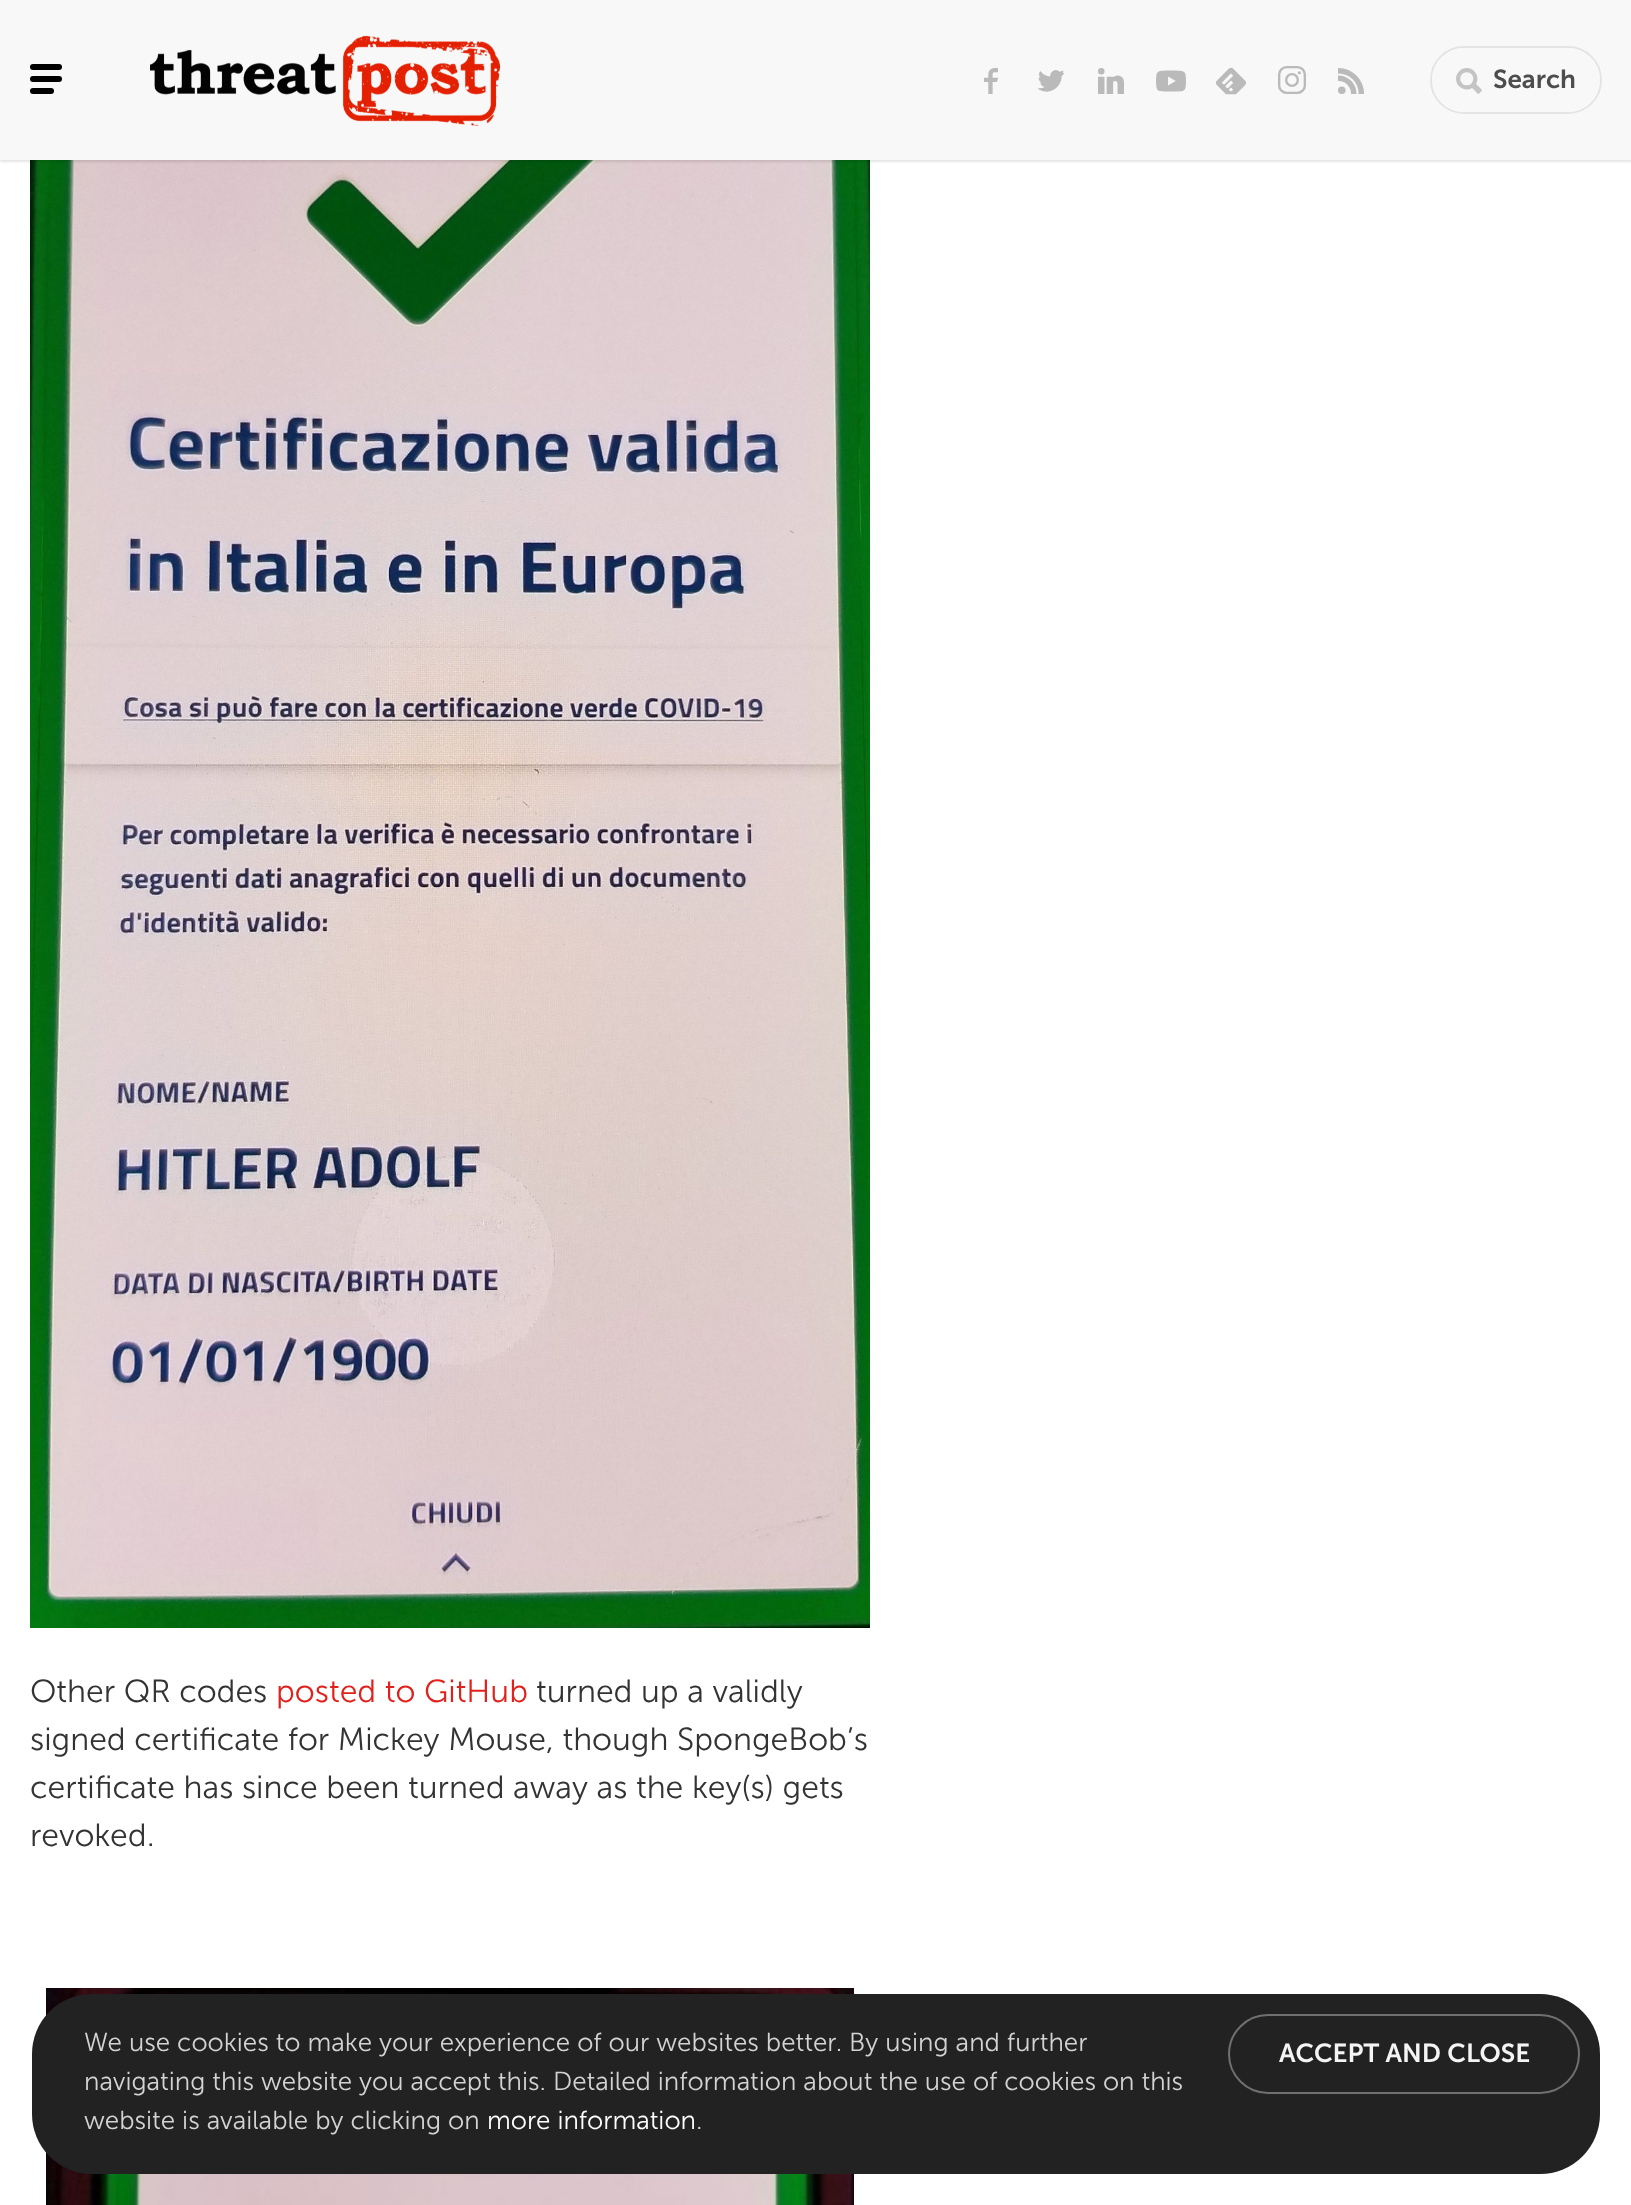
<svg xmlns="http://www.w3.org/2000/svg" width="1631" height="2205">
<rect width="100%" height="100%" fill="#fff"/>
<image x="30" y="160" width="840" height="1468" href="media/10.png"/>
<rect y="2" width="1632" height="160" fill="#0000001a" filter="blur(1px)"/>
<rect width="1631" height="160" fill="#f8f8f8"/>
<rect x="30" y="64" width="32" height="6" rx="3" fill="#000"/>
<rect x="30" y="76" width="32" height="6" rx="3" fill="#000"/>
<rect x="30" y="88" width="24" height="6" rx="3" fill="#000"/>
<image x="150" y="35" width="350" height="91" href="media/1.png"/>
<image x="984" y="68" width="14" height="26" href="media/2.png"/>
<image x="1038" y="70" width="26" height="22" href="media/3.png"/>
<image x="1098" y="68" width="26" height="26" href="media/4.png"/>
<image x="1156" y="70" width="30" height="22" href="media/5.png"/>
<image x="1216" y="67" width="30" height="28" href="media/6.png"/>
<image x="1278" y="66" width="28" height="28" href="media/7.png"/>
<image x="1338" y="68" width="26" height="26" href="media/8.png"/>
<rect x="1431" y="47" width="170" height="66" rx="33" fill="none" stroke="#e4e4e4" stroke-width="2"/>
<rect x="1432" y="48" width="168" height="64" rx="32" fill="#f8f8f8"/>
<image x="1456" y="68" width="26" height="26" href="media/9.png"/>
<text x="1493" y="88" style="font-family:Museo Sans;font-size:26px;font-weight:600;fill:#4d4d4d">Search</text>
<text x="30" y="1702" style="font-family:Museo Sans;font-size:32px;font-weight:300;fill:#333">Other QR codes</text>
<text x="276" y="1702" style="font-family:Museo Sans;font-size:32px;font-weight:300;fill:#e2211c">posted to GitHub</text>
<text x="536" y="1702" style="font-family:Museo Sans;font-size:32px;font-weight:300;fill:#333">turned up a validly</text>
<text x="30" y="1750" style="font-family:Museo Sans;font-size:32px;font-weight:300;fill:#333">signed certificate for Mickey Mouse, though SpongeBob’s</text>
<text x="30" y="1798" style="font-family:Museo Sans;font-size:32px;font-weight:300;fill:#333">certificate has since been turned away as the key(s) gets</text>
<text x="30" y="1846" style="font-family:Museo Sans;font-size:32px;font-weight:300;fill:#333">revoked.</text>
<image x="46" y="1988" width="808" height="217" href="media/11.png"/>
<rect x="32" y="1994" width="1568" height="180" rx="60" fill="#222"/>
<text x="84" y="2051" style="font-family:Museo Sans;font-size:26px;font-weight:300;fill:#d3d3d3">We use cookies to make your experience of our websites better. By using and further</text>
<text x="84" y="2090" style="font-family:Museo Sans;font-size:26px;font-weight:300;fill:#d3d3d3">navigating this website you accept this. Detailed information about the use of cookies on this</text>
<text x="84" y="2129" style="font-family:Museo Sans;font-size:26px;font-weight:300;fill:#d3d3d3">website is available by clicking on</text>
<text x="487" y="2129" style="font-family:Museo Sans;font-size:26px;font-weight:300;fill:#fff">more information</text>
<text x="696" y="2129" style="font-family:Museo Sans;font-size:26px;font-weight:300;fill:#d3d3d3">.</text>
<rect x="1229" y="2015" width="350" height="78" rx="39" fill="none" stroke="#707070" stroke-width="2"/>
<text x="1279" y="2062" style="font-family:Museo Sans;font-size:26px;font-weight:600;fill:#f4f4f4">ACCEPT AND CLOSE</text>
</svg>
